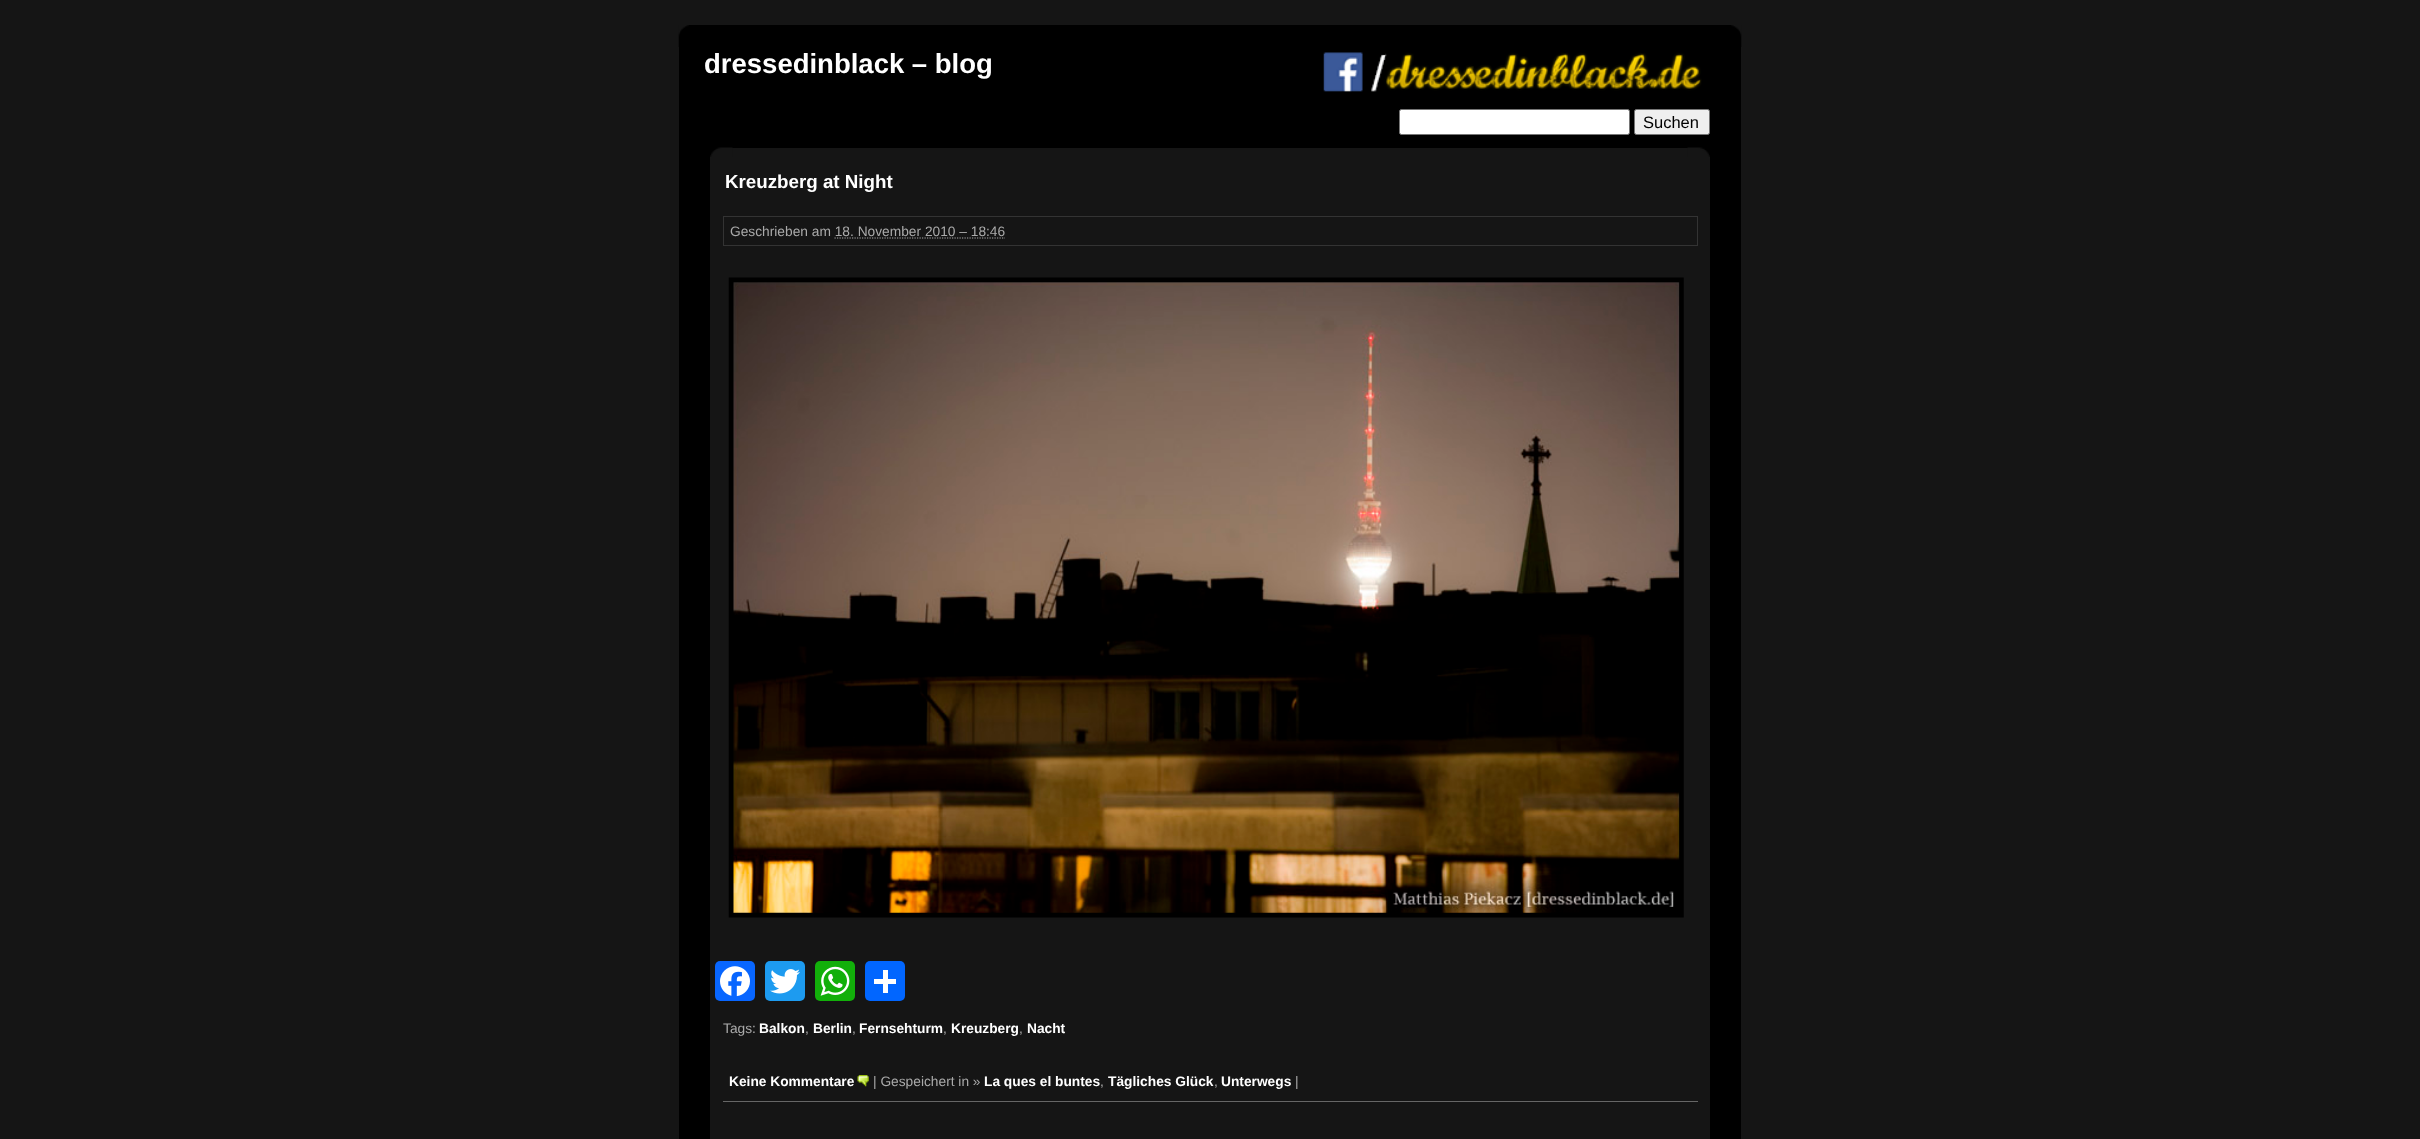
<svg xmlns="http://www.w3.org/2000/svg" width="2420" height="1139">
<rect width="100%" height="100%" fill="#151515"/>
<rect x="679" y="25" width="1062" height="1114" fill="#000"/>
<image x="1731" y="25" width="11" height="22" href="media/1.png"/>
<image x="678" y="25" width="11" height="22" href="media/2.png"/>
<text x="704" y="73" style="font-family:Liberation Sans;font-size:27.5px;font-weight:bold;fill:#fff">dressedinblack – blog</text>
<image x="1323" y="52" width="379" height="40" href="media/3.png"/>
<rect x="1399.5" y="109.5" width="230" height="25" rx="2" fill="#fff" stroke="#767676"/>
<rect x="1634.5" y="109.5" width="75" height="25" rx="2" fill="#efefef" stroke="#767676"/>
<text x="1643" y="128" style="font-family:Liberation Sans;font-size:16.5px;fill:#000">Suchen</text>
<rect x="710" y="148" width="1000" height="991" fill="#151515"/>
<image x="1687" y="147" width="23" height="10" href="media/4.png"/>
<image x="710" y="147" width="23" height="10" href="media/5.png"/>
<text x="725" y="188" style="font-family:Liberation Sans;font-size:18.75px;font-weight:bold;fill:#fff">Kreuzberg at Night</text>
<rect x="723.5" y="216.5" width="974" height="29" fill="none" stroke="#333"/>
<text x="730" y="236" style="font-family:Liberation Sans;font-size:13.75px;fill:#aaa">Geschrieben am 18. November 2010 – 18:46</text>
<path d="M834.5 238h170.5" fill="none" stroke="#aaa" stroke-width="1.2" stroke-dasharray="1.25 1.25"/>
<image x="728" y="277" width="956" height="641" href="media/6.png"/>
<rect x="715" y="961" width="40" height="40" rx="5" fill="#0866ff"/>
<image x="720" y="966" width="30" height="31" href="media/7.png"/>
<rect x="765" y="961" width="40" height="40" rx="5" fill="#1d9bf0"/>
<image x="770" y="969" width="30" height="25" href="media/8.png"/>
<rect x="815" y="961" width="40" height="40" rx="5" fill="#12af0a"/>
<image x="820" y="966" width="30" height="30" href="media/9.png"/>
<rect x="865" y="961" width="40" height="40" rx="5" fill="#0166ff"/>
<rect x="883" y="970" width="5" height="23" fill="#fff"/>
<rect x="874" y="979" width="22" height="5" fill="#fff"/>
<text x="723" y="1033" style="font-family:Liberation Sans;font-size:13.75px;fill:#aaa">Tags:</text>
<text x="759" y="1033" style="font-family:Liberation Sans;font-size:13.75px;font-weight:bold;fill:#fff">Balkon</text>
<text x="805" y="1033" style="font-family:Liberation Sans;font-size:13.75px;fill:#aaa">,</text>
<text x="813" y="1033" style="font-family:Liberation Sans;font-size:13.75px;font-weight:bold;fill:#fff">Berlin</text>
<text x="852" y="1033" style="font-family:Liberation Sans;font-size:13.75px;fill:#aaa">,</text>
<text x="859" y="1033" style="font-family:Liberation Sans;font-size:13.75px;font-weight:bold;fill:#fff">Fernsehturm</text>
<text x="943" y="1033" style="font-family:Liberation Sans;font-size:13.75px;fill:#aaa">,</text>
<text x="951" y="1033" style="font-family:Liberation Sans;font-size:13.75px;font-weight:bold;fill:#fff">Kreuzberg</text>
<text x="1019" y="1033" style="font-family:Liberation Sans;font-size:13.75px;fill:#aaa">,</text>
<text x="1027" y="1033" style="font-family:Liberation Sans;font-size:13.75px;font-weight:bold;fill:#fff">Nacht</text>
<rect x="723" y="1101" width="975" height="1" fill="#666"/>
<text x="729" y="1086" style="font-family:Liberation Sans;font-size:13.75px;font-weight:bold;fill:#fff">Keine Kommentare</text>
<image x="857" y="1075" width="12" height="12" href="media/10.png"/>
<text x="873" y="1086" style="font-family:Liberation Sans;font-size:13.75px;fill:#aaa">| Gespeichert in »</text>
<text x="984" y="1086" style="font-family:Liberation Sans;font-size:13.75px;font-weight:bold;fill:#fff">La ques el buntes</text>
<text x="1100" y="1086" style="font-family:Liberation Sans;font-size:13.75px;fill:#aaa">,</text>
<text x="1108" y="1086" style="font-family:Liberation Sans;font-size:13.75px;font-weight:bold;fill:#fff">Tägliches Glück</text>
<text x="1214" y="1086" style="font-family:Liberation Sans;font-size:13.75px;fill:#aaa">,</text>
<text x="1221" y="1086" style="font-family:Liberation Sans;font-size:13.75px;font-weight:bold;fill:#fff">Unterwegs</text>
<text x="1295" y="1086" style="font-family:Liberation Sans;font-size:13.75px;fill:#aaa">|</text>
</svg>
